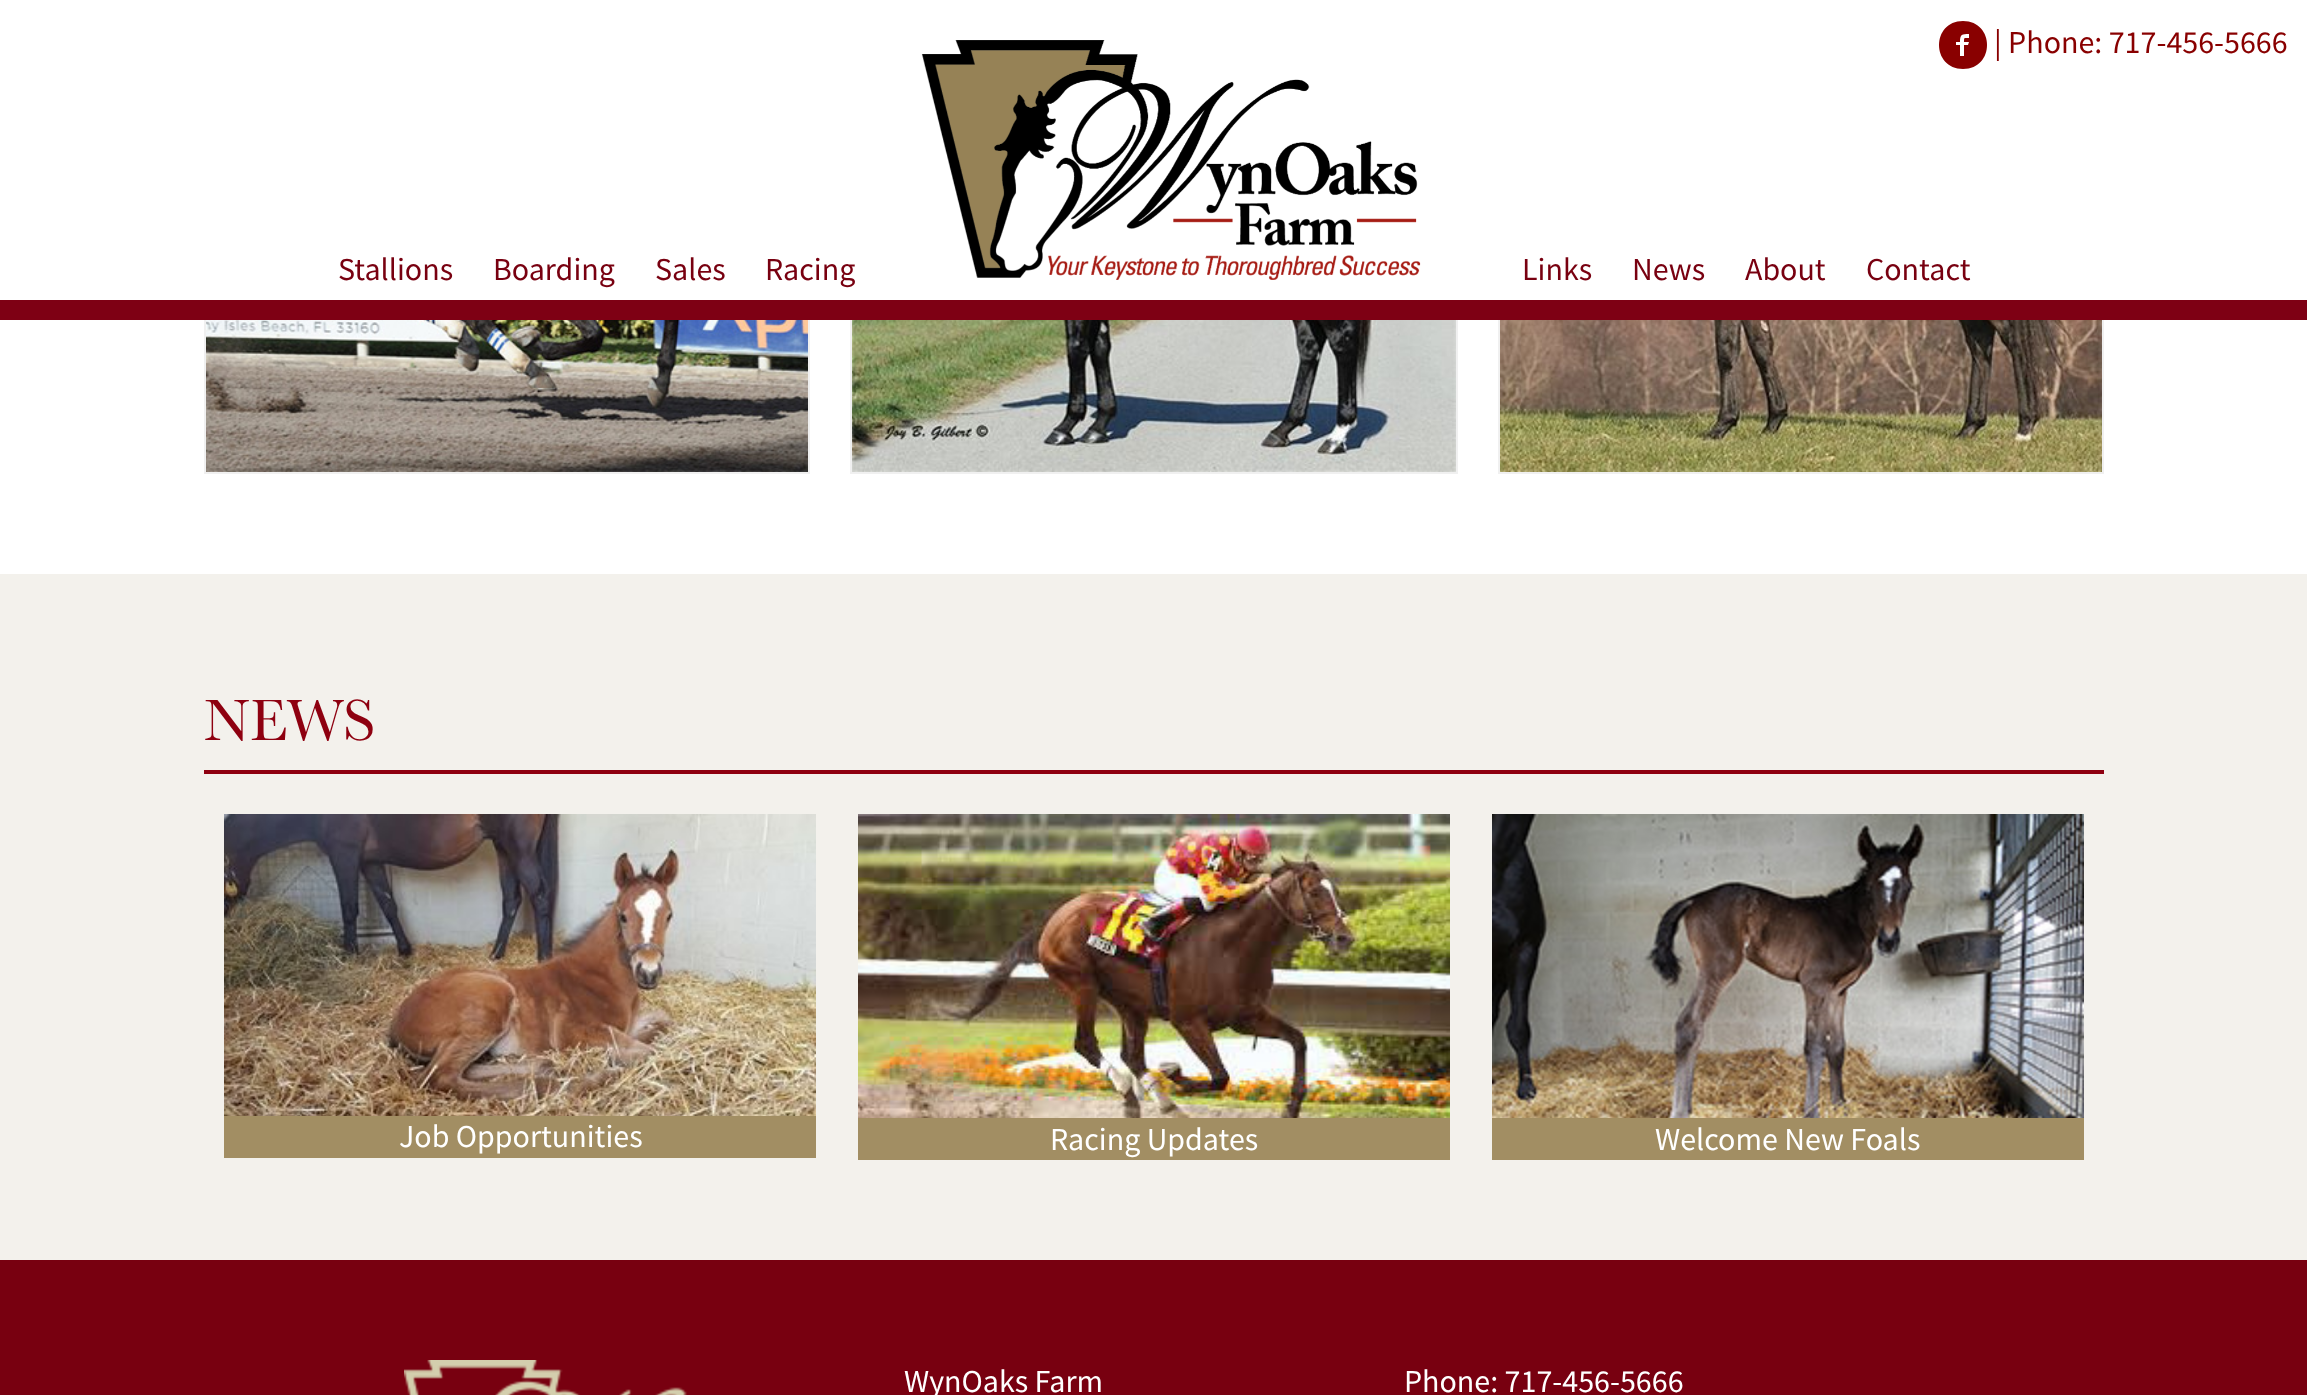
<svg xmlns="http://www.w3.org/2000/svg" width="2307" height="1395">
<rect width="100%" height="100%" fill="#f3f1ec"/>
<rect y="320" width="2307" height="254" fill="#fff"/>
<rect x="205" y="-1" width="604" height="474" fill="none" stroke="#f0f0f0" stroke-width="2"/>
<rect x="851" y="-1" width="606" height="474" fill="none" stroke="#f0f0f0" stroke-width="2"/>
<rect x="1499" y="-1" width="604" height="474" fill="none" stroke="#f0f0f0" stroke-width="2"/>
<rect width="2307" height="300" fill="#fff"/>
<rect y="300" width="2307" height="20" fill="#7e0014"/>
<path d="M1963 21c-32 0-32 48 0 48c32 0 32-48 0-48zm6 17c-5 0-5-1-5 4h5l-1 3h-4v11h-4v-11h-4v-3h4c0-8 2-8 9-8z" fill="#890000"/>
<text x="1994" y="53" style="font-family:Source Sans Pro;font-size:32px;fill:#890000">| Phone: 717-456-5666</text>
<text x="338" y="280" style="font-family:Source Sans Pro;font-size:32px;fill:#780010">Stallions</text>
<text x="493" y="280" style="font-family:Source Sans Pro;font-size:32px;fill:#780010">Boarding</text>
<text x="655" y="280" style="font-family:Source Sans Pro;font-size:32px;fill:#780010">Sales</text>
<text x="765" y="280" style="font-family:Source Sans Pro;font-size:32px;fill:#780010">Racing</text>
<image x="921" y="40" width="500" height="240" href="media/1.png"/>
<text x="1522" y="280" style="font-family:Source Sans Pro;font-size:32px;fill:#780010">Links</text>
<text x="1632" y="280" style="font-family:Source Sans Pro;font-size:32px;fill:#780010">News</text>
<text x="1745" y="280" style="font-family:Source Sans Pro;font-size:32px;fill:#780010">About</text>
<text x="1866" y="280" style="font-family:Source Sans Pro;font-size:32px;fill:#780010">Contact</text>
<image x="206" y="320" width="602" height="152" href="media/2.png"/>
<image x="852" y="320" width="604" height="152" href="media/3.png"/>
<image x="1500" y="320" width="602" height="152" href="media/4.png"/>
<rect x="204" y="770" width="1900" height="4" fill="#8e0010"/>
<text x="204" y="740" style="font-family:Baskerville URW;font-size:60px;fill:#8e0010">NEWS</text>
<image x="224" y="814" width="592" height="302" href="media/5.png"/>
<rect x="224" y="1116" width="592" height="42" fill="#a28e63"/>
<text x="399" y="1147" style="font-family:Source Sans Pro;font-size:32px;fill:#fff">Job Opportunities</text>
<image x="858" y="814" width="592" height="304" href="media/6.png"/>
<rect x="858" y="1118" width="592" height="42" fill="#a28e63"/>
<text x="1050" y="1150" style="font-family:Source Sans Pro;font-size:32px;fill:#fff">Racing Updates</text>
<image x="1492" y="814" width="592" height="304" href="media/7.png"/>
<rect x="1492" y="1118" width="592" height="42" fill="#a28e63"/>
<text x="1655" y="1150" style="font-family:Source Sans Pro;font-size:32px;fill:#fff">Welcome New Foals</text>
<rect y="1260" width="2307" height="135" fill="#780010"/>
<image x="404" y="1360" width="283" height="35" href="media/8.png"/>
<text x="904" y="1392" style="font-family:Source Sans Pro;font-size:32px;fill:#fff">WynOaks Farm</text>
<text x="1404" y="1392" style="font-family:Source Sans Pro;font-size:32px;fill:#fff">Phone: 717-456-5666</text>
</svg>
